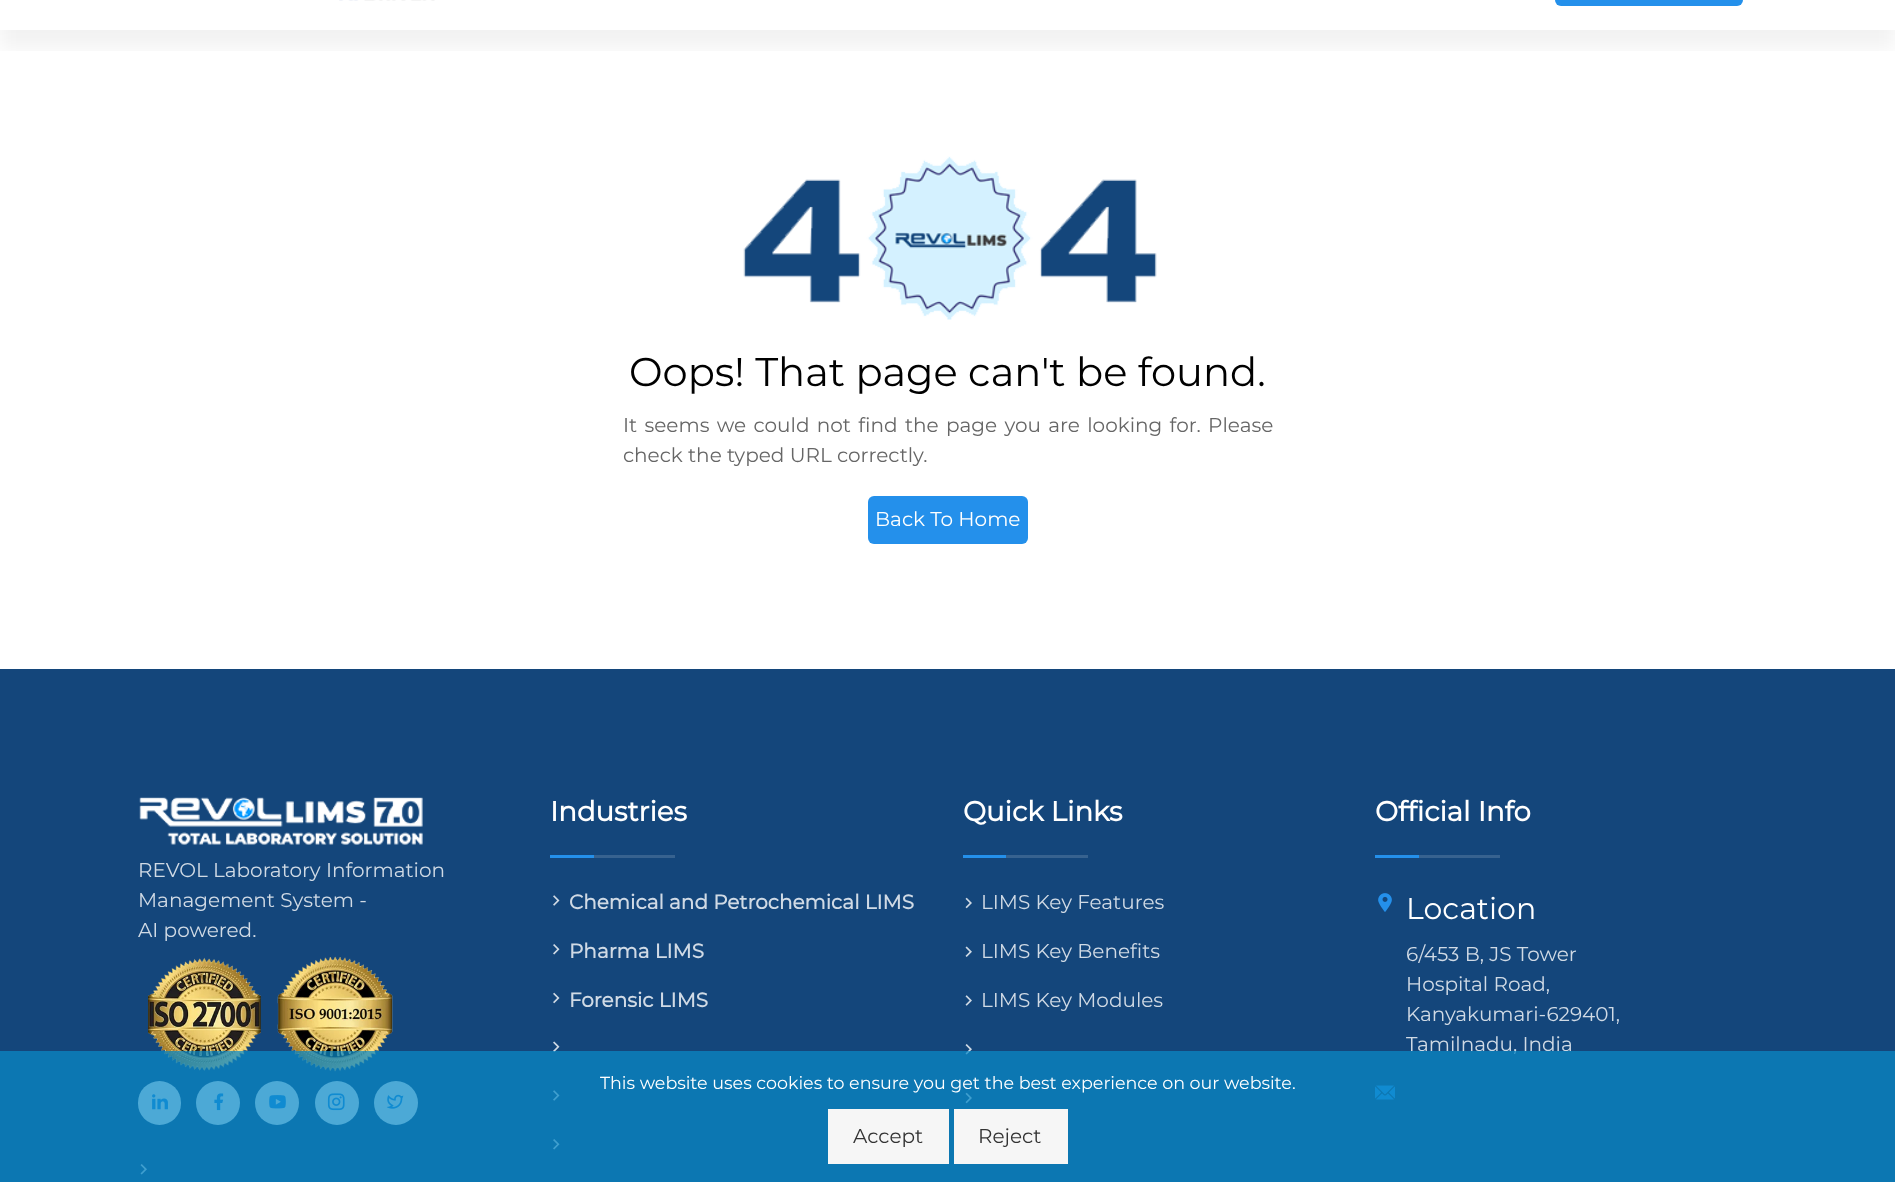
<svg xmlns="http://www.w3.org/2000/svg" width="1895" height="1182">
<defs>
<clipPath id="clip1"><rect x="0" y="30" width="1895" height="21"/></clipPath>
</defs>
<rect width="100%" height="100%" fill="#fff"/>
<g clip-path="url(#clip1)">
<rect y="-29" width="1895" height="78" fill="#0000000d" filter="blur(9.5px)"/>
</g>
<image x="339" y="0" width="96" height="1" href="media/1.png"/>
<rect x="1555" y="-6" width="188" height="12" rx="6" fill="#2490eb"/>
<image x="743" y="156" width="414" height="164" href="media/2.png"/>
<text x="629" y="386" style="font-family:Montserrat;font-size:40px;font-weight:100;fill:#000">Oops! That page can't be found.</text>
<text x="623" y="432" word-spacing="2.1" style="font-family:Montserrat;font-size:20px;font-weight:100;fill:#666">It seems we could not find the page you are looking for. Please</text>
<text x="623" y="462" style="font-family:Montserrat;font-size:20px;font-weight:100;fill:#666">check the typed URL correctly.</text>
<rect x="868" y="496" width="160" height="48" rx="6" fill="#2490eb"/>
<text x="875" y="526" style="font-family:Montserrat;font-size:20px;font-weight:100;fill:#fff">Back To Home</text>
<rect y="669" width="1895" height="513" fill="#14467b"/>
<image x="139" y="797" width="284" height="48" href="media/3.png"/>
<text x="138" y="877" style="font-family:Montserrat;font-size:20px;font-weight:100;fill:#d0dae5">REVOL Laboratory Information</text>
<text x="138" y="907" style="font-family:Montserrat;font-size:20px;font-weight:100;fill:#d0dae5">Management System -</text>
<text x="138" y="937" style="font-family:Montserrat;font-size:20px;font-weight:100;fill:#d0dae5">AI powered.</text>
<image x="148" y="956" width="245" height="116" href="media/4.png"/>
<rect x="138" y="1081" width="43" height="44" rx="21.5" fill="#fff"/>
<image x="152" y="1094" width="16" height="16" href="media/5.png"/>
<circle cx="218" cy="1103" r="22" fill="#fff"/>
<image x="214" y="1093" width="10" height="18" href="media/6.png"/>
<circle cx="277" cy="1103" r="22" fill="#fff"/>
<image x="269" y="1095" width="17" height="14" href="media/7.png"/>
<circle cx="337" cy="1103" r="22" fill="#fff"/>
<image x="327" y="1093" width="18" height="18" href="media/8.png"/>
<circle cx="396" cy="1103" r="22" fill="#fff"/>
<image x="386" y="1094" width="18" height="15" href="media/9.png"/>
<image x="140" y="1164" width="7" height="11" href="media/10.png"/>
<text x="550" y="821" style="font-family:Montserrat;font-size:27.5px;font-weight:bold;fill:#fff">Industries</text>
<rect x="550" y="855" width="44" height="3" fill="#2490eb"/>
<rect x="594" y="855" width="81" height="3" fill="#37628f"/>
<image x="553" y="895" width="7" height="11" href="media/11.png"/>
<text x="569" y="909" style="font-family:Montserrat;font-size:20px;font-weight:bold;fill:#d0dae5">Chemical and Petrochemical LIMS</text>
<image x="553" y="944" width="7" height="11" href="media/12.png"/>
<text x="569" y="958" style="font-family:Montserrat;font-size:20px;font-weight:bold;fill:#d0dae5">Pharma LIMS</text>
<image x="553" y="992" width="7" height="12" href="media/13.png"/>
<text x="569" y="1007" style="font-family:Montserrat;font-size:20px;font-weight:bold;fill:#d0dae5">Forensic LIMS</text>
<image x="553" y="1041" width="7" height="11" href="media/14.png"/>
<image x="553" y="1090" width="7" height="11" href="media/11.png"/>
<image x="553" y="1139" width="7" height="11" href="media/12.png"/>
<text x="963" y="821" style="font-family:Montserrat;font-size:27.5px;font-weight:bold;fill:#fff">Quick Links</text>
<rect x="963" y="855" width="43" height="3" fill="#2490eb"/>
<rect x="1006" y="855" width="82" height="3" fill="#37628f"/>
<image x="965" y="897" width="7" height="12" href="media/15.png"/>
<text x="981" y="909" style="font-family:Montserrat;font-size:20px;font-weight:100;fill:#d0dae5">LIMS Key Features</text>
<image x="965" y="946" width="7" height="11" href="media/16.png"/>
<text x="981" y="958" style="font-family:Montserrat;font-size:20px;font-weight:100;fill:#d0dae5">LIMS Key Benefits</text>
<image x="965" y="995" width="7" height="11" href="media/17.png"/>
<text x="981" y="1007" style="font-family:Montserrat;font-size:20px;font-weight:100;fill:#d0dae5">LIMS Key Modules</text>
<image x="965" y="1044" width="7" height="11" href="media/10.png"/>
<image x="965" y="1092" width="7" height="12" href="media/15.png"/>
<text x="1375" y="821" style="font-family:Montserrat;font-size:27.5px;font-weight:bold;fill:#fff">Official Info</text>
<rect x="1375" y="855" width="44" height="3" fill="#2490eb"/>
<rect x="1419" y="855" width="81" height="3" fill="#37628f"/>
<image x="1378" y="893" width="14" height="19" href="media/18.png"/>
<text x="1406" y="919" style="font-family:Montserrat;font-size:30px;font-weight:100;fill:#fff">Location</text>
<text x="1406" y="961" style="font-family:Montserrat;font-size:20px;font-weight:100;fill:#d0dae5">6/453 B, JS Tower</text>
<text x="1406" y="991" style="font-family:Montserrat;font-size:20px;font-weight:100;fill:#d0dae5">Hospital Road,</text>
<text x="1406" y="1021" style="font-family:Montserrat;font-size:20px;font-weight:100;fill:#d0dae5">Kanyakumari-629401,</text>
<text x="1406" y="1051" style="font-family:Montserrat;font-size:20px;font-weight:100;fill:#d0dae5">Tamilnadu, India</text>
<image x="1375" y="1085" width="20" height="15" href="media/19.png"/>
<rect y="1051" width="1895" height="131" fill="#0989c7ba"/>
<text x="600" y="1089" style="font-family:Montserrat;font-size:17.5px;font-weight:100;fill:#fff">This website uses cookies to ensure you get the best experience on our website.</text>
<rect x="828" y="1109" width="121" height="55" fill="#f6f6f6"/>
<text x="853" y="1143" style="font-family:Montserrat;font-size:20px;font-weight:100;fill:#333">Accept</text>
<rect x="954" y="1109" width="114" height="55" fill="#f6f6f6"/>
<text x="978" y="1143" style="font-family:Montserrat;font-size:20px;font-weight:100;fill:#333">Reject</text>
</svg>
